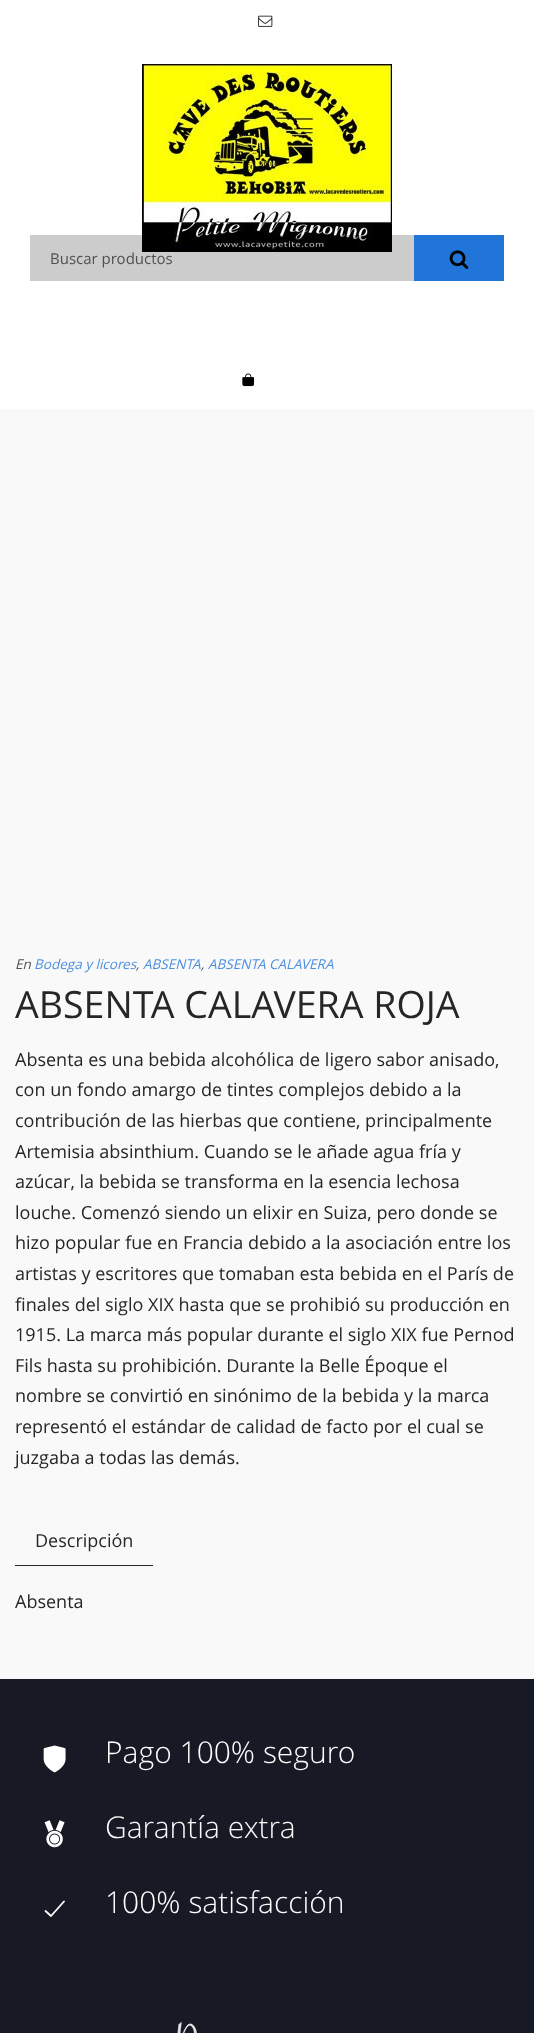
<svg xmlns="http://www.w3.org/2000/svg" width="534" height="2033">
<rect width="100%" height="100%" fill="#f9f9f9"/>
<rect width="534" height="409" fill="#fff"/>
<image x="142" y="64" width="250" height="188" href="media/1.png"/>
<image x="258" y="15" width="15" height="12" href="media/2.png"/>
<rect x="30" y="235" width="384" height="46" fill="#00000033"/>
<text x="50" y="264" style="font-family:Open Sans;font-size:15px;fill:#505050">Buscar productos</text>
<rect x="414" y="235" width="90" height="46" fill="#2175d9"/>
<image x="449" y="250" width="20" height="19" href="media/3.png"/>
<image x="242" y="373" width="13" height="14" href="media/4.png"/>
<circle cx="261.5" cy="386.5" r="7.5" fill="#fff"/>
<text x="15" y="969" style="font-family:Open Sans;font-size:13.5px;font-style:italic;fill:#505050">En</text>
<text x="34" y="969" style="font-family:Open Sans;font-size:13.5px;font-style:italic;fill:#4c8fdf">Bodega y licores</text>
<text x="143" y="969" style="font-family:Open Sans;font-size:13.5px;font-style:italic;fill:#4c8fdf">ABSENTA</text>
<text x="208" y="969" style="font-family:Open Sans;font-size:13.5px;font-style:italic;fill:#4c8fdf">ABSENTA CALAVERA</text>
<text x="136" y="969" style="font-family:Open Sans;font-size:13.5px;font-style:italic;fill:#505050">,</text>
<text x="201" y="969" style="font-family:Open Sans;font-size:13.5px;font-style:italic;fill:#505050">,</text>
<text x="15" y="1018" style="font-family:Open Sans;font-size:37.5px;fill:#262626">ABSENTA CALAVERA ROJA</text>
<text x="15" y="1066" style="font-family:Open Sans;font-size:18px;fill:#262626">Absenta es una bebida alcohólica de ligero sabor anisado,</text>
<text x="15" y="1096" style="font-family:Open Sans;font-size:18px;fill:#262626">con un fondo amargo de tintes complejos debido a la</text>
<text x="15" y="1127" style="font-family:Open Sans;font-size:18px;fill:#262626">contribución de las hierbas que contiene, principalmente</text>
<text x="15" y="1158" style="font-family:Open Sans;font-size:18px;fill:#262626">Artemisia absinthium. Cuando se le añade agua fría y</text>
<text x="15" y="1188" style="font-family:Open Sans;font-size:18px;fill:#262626">azúcar, la bebida se transforma en la esencia lechosa</text>
<text x="15" y="1219" style="font-family:Open Sans;font-size:18px;fill:#262626">louche. Comenzó siendo un elixir en Suiza, pero donde se</text>
<text x="15" y="1249" style="font-family:Open Sans;font-size:18px;fill:#262626">hizo popular fue en Francia debido a la asociación entre los</text>
<text x="15" y="1280" style="font-family:Open Sans;font-size:18px;fill:#262626">artistas y escritores que tomaban esta bebida en el París de</text>
<text x="15" y="1311" style="font-family:Open Sans;font-size:18px;fill:#262626">finales del siglo XIX hasta que se prohibió su producción en</text>
<text x="15" y="1341" style="font-family:Open Sans;font-size:18px;fill:#262626">1915. La marca más popular durante el siglo XIX fue Pernod</text>
<text x="15" y="1372" style="font-family:Open Sans;font-size:18px;fill:#262626">Fils hasta su prohibición. Durante la Belle Époque el</text>
<text x="15" y="1402" style="font-family:Open Sans;font-size:18px;fill:#262626">nombre se convirtió en sinónimo de la bebida y la marca</text>
<text x="15" y="1433" style="font-family:Open Sans;font-size:18px;fill:#262626">representó el estándar de calidad de facto por el cual se</text>
<text x="15" y="1464" style="font-family:Open Sans;font-size:18px;fill:#262626">juzgaba a todas las demás.</text>
<rect x="15" y="1565" width="138" height="1" fill="#262626"/>
<text x="35" y="1547" style="font-family:Open Sans;font-size:18px;fill:#262626">Descripción</text>
<text x="15" y="1608" style="font-family:Open Sans;font-size:18px;fill:#262626">Absenta</text>
<rect y="1679" width="534" height="354" fill="#171925"/>
<image x="43" y="1745" width="23" height="28" href="media/5.png"/>
<text x="105" y="1763" style="font-family:Open Sans;font-size:30px;font-weight:300;fill:#fff">Pago 100% seguro</text>
<image x="44" y="1820" width="21" height="28" href="media/6.png"/>
<text x="105" y="1838" style="font-family:Open Sans;font-size:30px;font-weight:300;fill:#f9f9f9">Garantía extra</text>
<path d="M64 1901.5l-13 14.5l-5.5-5" fill="none" stroke="#fff" stroke-width="1.8" stroke-linecap="round" stroke-linejoin="round"/>
<text x="105" y="1913" style="font-family:Open Sans;font-size:30px;font-weight:300;fill:#fff">100% satisfacción</text>
<image x="177" y="2022" width="20" height="11" href="media/7.png"/>
</svg>
